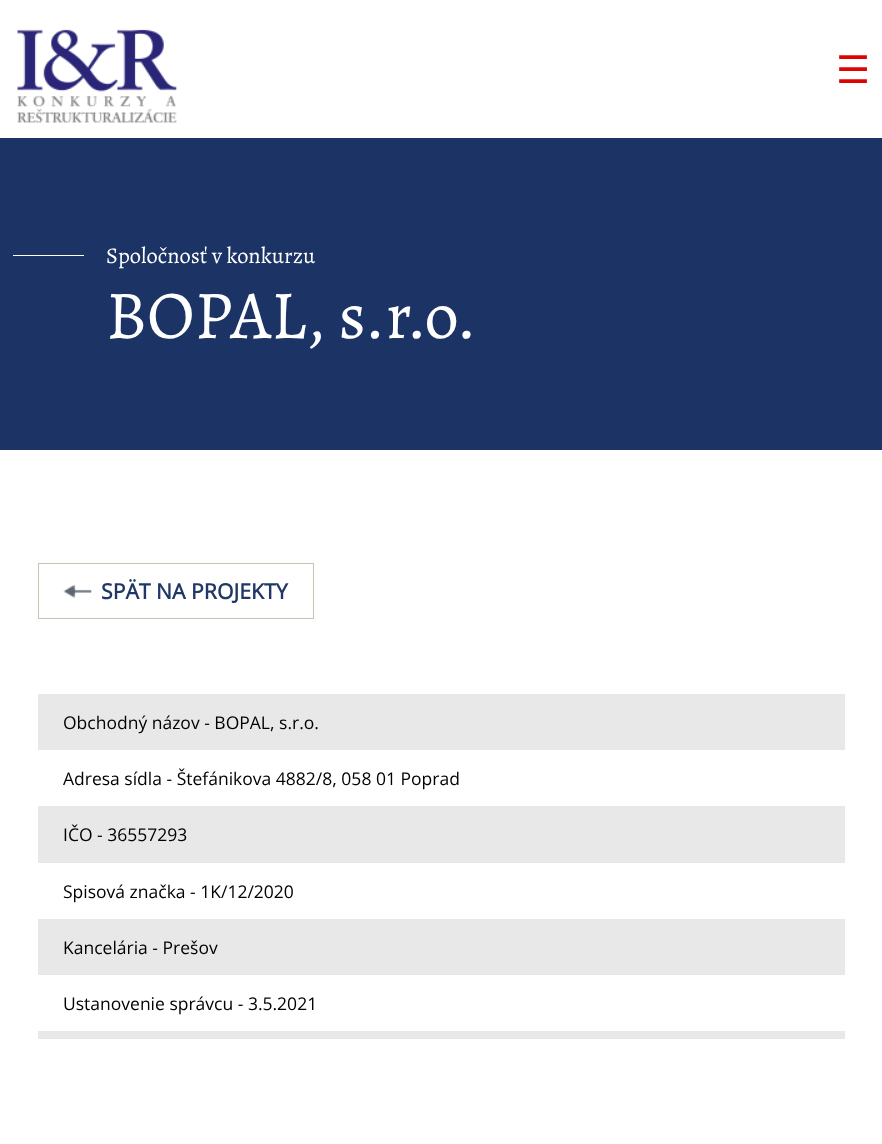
<svg xmlns="http://www.w3.org/2000/svg" width="882" height="1144">
<rect width="100%" height="100%" fill="#1c3465"/>
<rect width="882" height="138" fill="#fff"/>
<image x="17" y="29" width="160" height="94" href="media/1.png"/>
<text x="836" y="83" style="font-family:DejaVu Sans;font-size:38px;fill:#de0404">☰</text>
<rect x="13" y="255" width="71" height="1" fill="#fff"/>
<text x="106" y="263" style="font-family:Alegreya;font-size:22.5px;fill:#fff">Spoločnosť v konkurzu</text>
<text x="106" y="338" style="font-family:Alegreya;font-size:68.75px;fill:#fff">BOPAL, s.r.o.</text>
<rect y="450" width="882" height="694" fill="#fff"/>
<image x="63" y="584" width="29" height="14" href="media/2.png"/>
<rect x="38.5" y="563.5" width="275" height="55" fill="none" stroke="#c9c2b1"/>
<text x="101" y="599" style="font-family:Open Sans;font-size:21.25px;font-weight:bold;fill:#213867">SPÄT NA PROJEKTY</text>
<rect x="38" y="1031" width="807" height="8" fill="#e8e8e8"/>
<rect x="38" y="694" width="807" height="56" fill="#e8e8e8"/>
<text x="63" y="729" style="font-family:Open Sans;font-size:17.5px;fill:#000">Obchodný názov - BOPAL, s.r.o.</text>
<text x="63" y="785" style="font-family:Open Sans;font-size:17.5px;fill:#000">Adresa sídla - Štefánikova 4882/8, 058 01 Poprad</text>
<rect x="38" y="806" width="807" height="57" fill="#e8e8e8"/>
<text x="63" y="841" style="font-family:Open Sans;font-size:17.5px;fill:#000">IČO - 36557293</text>
<text x="63" y="898" style="font-family:Open Sans;font-size:17.5px;fill:#000">Spisová značka - 1K/12/2020</text>
<rect x="38" y="919" width="807" height="56" fill="#e8e8e8"/>
<text x="63" y="954" style="font-family:Open Sans;font-size:17.5px;fill:#000">Kancelária - Prešov</text>
<text x="63" y="1010" style="font-family:Open Sans;font-size:17.5px;fill:#000">Ustanovenie správcu - 3.5.2021</text>
</svg>
